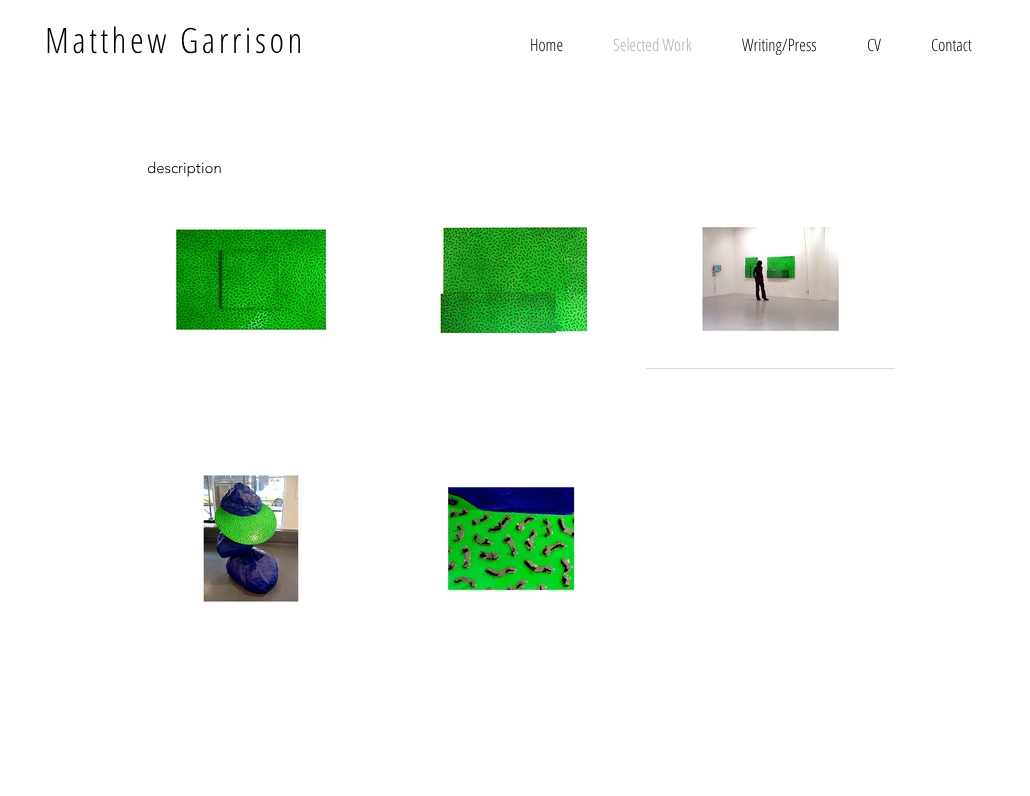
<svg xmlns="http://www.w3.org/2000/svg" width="1030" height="796">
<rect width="100%" height="100%" fill="#fff"/>
<text x="45" y="53" style="font-family:Open Sans Condensed;font-size:35px;font-weight:300;letter-spacing:3.5px;fill:#000">Matthew Garrison</text>
<text x="530" y="51" style="font-family:Open Sans Condensed;font-size:17px;font-weight:300;fill:#000">Home</text>
<text x="613" y="51" style="font-family:Open Sans Condensed;font-size:17px;font-weight:300;fill:#afafaf">Selected Work</text>
<text x="742" y="51" style="font-family:Open Sans Condensed;font-size:17px;font-weight:300;fill:#000">Writing/Press</text>
<text x="867" y="51" style="font-family:Open Sans Condensed;font-size:17px;font-weight:300;fill:#000">CV</text>
<text x="931" y="51" style="font-family:Open Sans Condensed;font-size:17px;font-weight:300;fill:#000">Contact</text>
<text x="147" y="173" style="font-family:'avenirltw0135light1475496';font-size:15px;font-weight:300;fill:#000">description</text>
<image x="126" y="190" width="250" height="179" href="media/1.png"/>
<image x="386" y="190" width="250" height="179" href="media/2.png"/>
<rect x="646" y="368" width="249" height="1" fill="#dddcdc"/>
<image x="646" y="190" width="249" height="178" href="media/3.png"/>
<image x="126" y="449" width="250" height="179" href="media/4.png"/>
<image x="386" y="449" width="250" height="179" href="media/5.png"/>
</svg>
